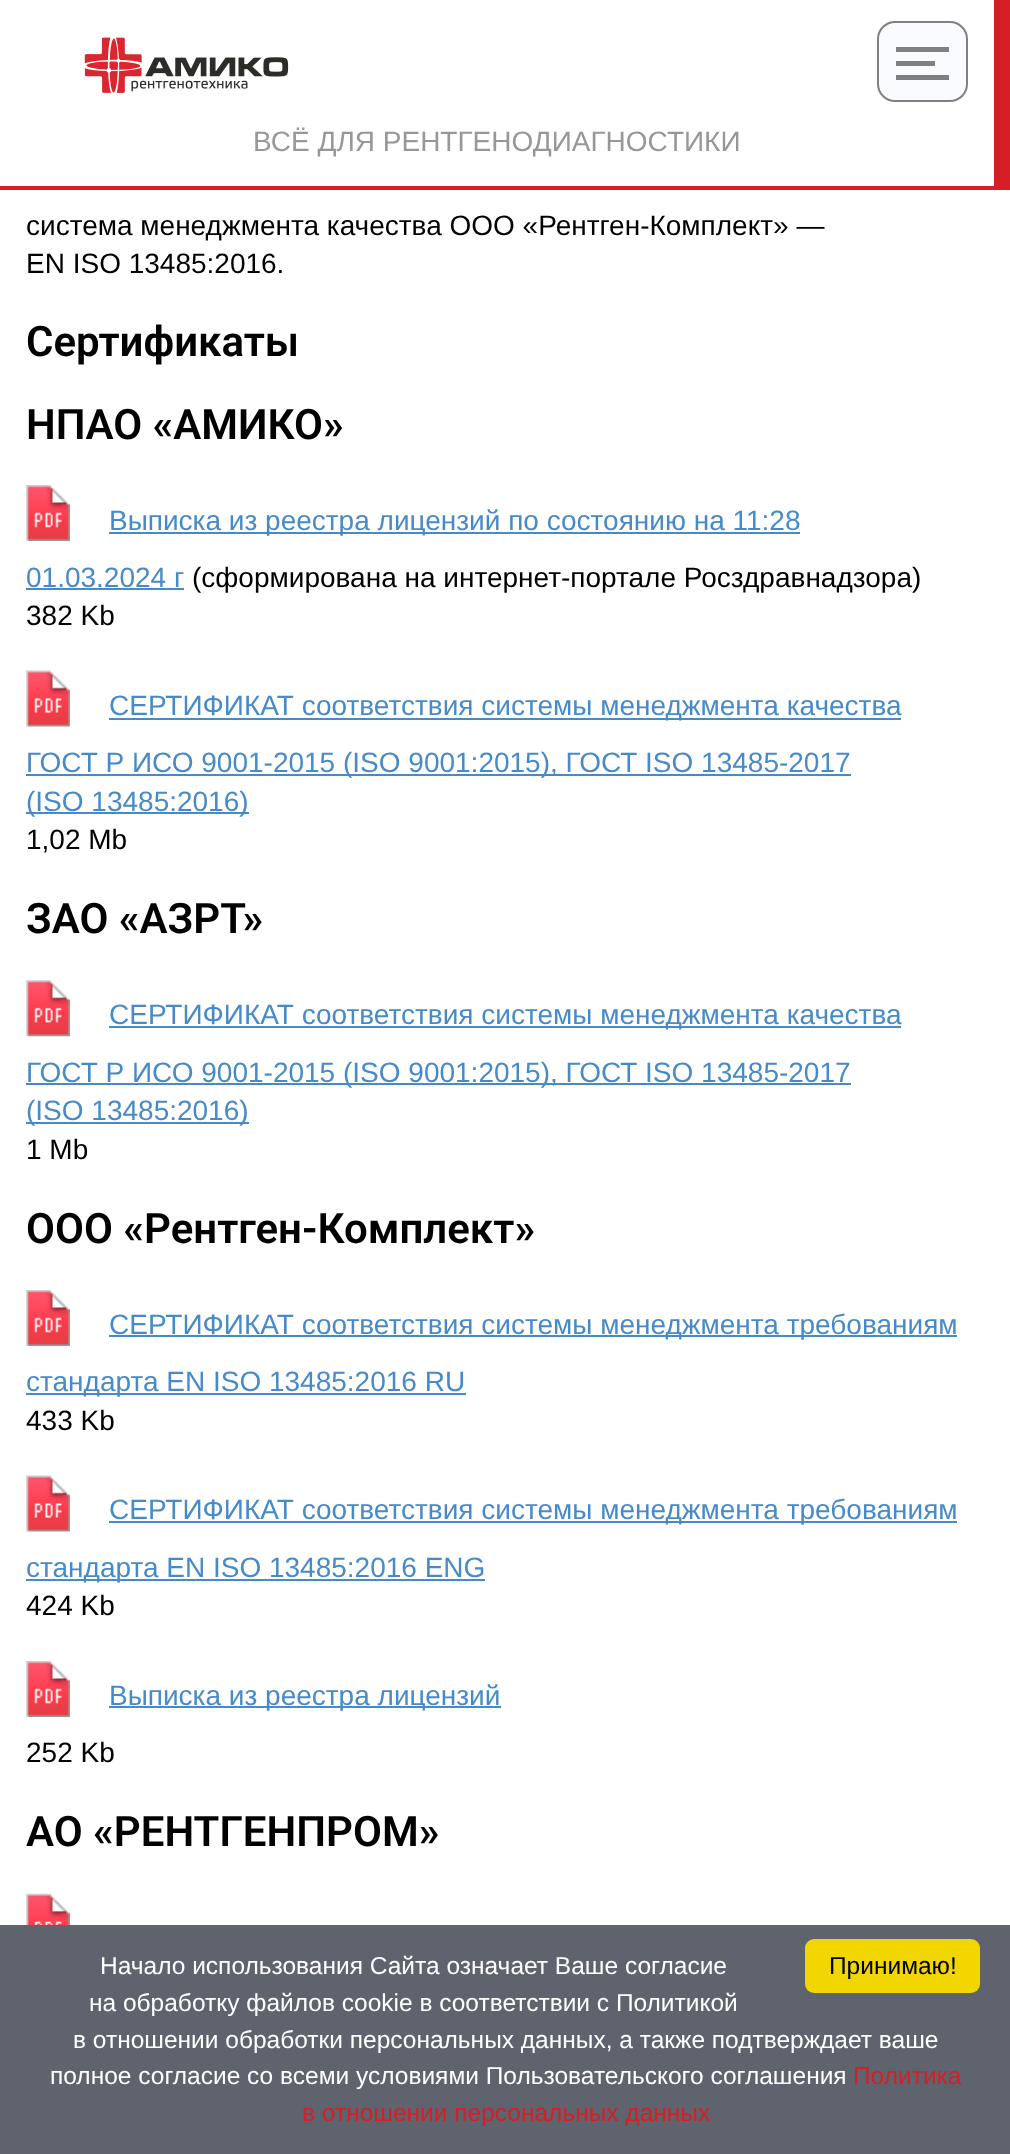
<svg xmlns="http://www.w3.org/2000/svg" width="1010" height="2154">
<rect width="100%" height="100%" fill="#fff"/>
<rect x="994" width="16" height="186" fill="#d51f26"/>
<rect y="186" width="1010" height="4" fill="#d51f26"/>
<image x="84" y="37" width="205" height="56" href="media/1.png"/>
<rect x="878" y="22" width="89" height="79" rx="17" fill="#f9fbfe" stroke="#808080" stroke-width="2"/>
<rect x="896" y="61" width="39" height="5" fill="#808080"/>
<rect x="896" y="47" width="53" height="5" fill="#808080"/>
<rect x="896" y="75" width="53" height="5" fill="#808080"/>
<text x="253" y="151" style="font-family:Liberation Sans;font-size:28px;fill:#979797">ВСЁ ДЛЯ РЕНТГЕНОДИАГНОСТИКИ</text>
<text x="26" y="235" style="font-family:Liberation Sans;font-size:28px;fill:#000">система менеджмента качества ООО «Рентген-Комплект» —</text>
<text x="26" y="273" style="font-family:Liberation Sans;font-size:28px;fill:#000">EN ISO 13485:2016.</text>
<text x="26" y="356" style="font-family:Roboto;font-size:42px;font-weight:600;fill:#000">Сертификаты</text>
<text x="26" y="439" style="font-family:Roboto;font-size:42px;font-weight:600;fill:#000">НПАО «АМИКО»</text>
<image x="26" y="485" width="44" height="56" href="media/2.png"/>
<rect x="109" y="532" width="691" height="2" fill="#478ac9"/>
<text x="109" y="530" style="font-family:Liberation Sans;font-size:28px;fill:#478ac9">Выписка из реестра лицензий по состоянию на 11:28</text>
<text x="26" y="587" style="font-family:Liberation Sans;font-size:28px;fill:#478ac9">01.03.2024 г</text>
<rect x="26" y="588" width="158" height="2" fill="#478ac9"/>
<text x="192" y="587" style="font-family:Liberation Sans;font-size:28px;fill:#000">(сформирована на интернет-портале Росздравнадзора)</text>
<text x="26" y="625" style="font-family:Liberation Sans;font-size:28px;fill:#000">382 Kb</text>
<image x="26" y="670" width="44" height="57" href="media/3.png"/>
<rect x="109" y="718" width="792" height="2" fill="#478ac9"/>
<text x="109" y="715" style="font-family:Liberation Sans;font-size:28px;fill:#478ac9">СЕРТИФИКАТ соответствия системы менеджмента качества</text>
<rect x="26" y="774" width="825" height="2" fill="#478ac9"/>
<text x="26" y="772" style="font-family:Liberation Sans;font-size:28px;fill:#478ac9">ГОСТ Р ИСО 9001-2015 (ISO 9001:2015), ГОСТ ISO 13485-2017</text>
<rect x="26" y="812" width="223" height="2" fill="#478ac9"/>
<text x="26" y="811" style="font-family:Liberation Sans;font-size:28px;fill:#478ac9">(ISO 13485:2016)</text>
<text x="26" y="849" style="font-family:Liberation Sans;font-size:28px;fill:#000">1,02 Mb</text>
<text x="26" y="933" style="font-family:Roboto;font-size:42px;font-weight:600;fill:#000">ЗАО «АЗРТ»</text>
<image x="26" y="980" width="44" height="57" href="media/4.png"/>
<rect x="109" y="1026" width="792" height="2" fill="#478ac9"/>
<text x="109" y="1024" style="font-family:Liberation Sans;font-size:28px;fill:#478ac9">СЕРТИФИКАТ соответствия системы менеджмента качества</text>
<rect x="26" y="1083" width="825" height="2" fill="#478ac9"/>
<text x="26" y="1082" style="font-family:Liberation Sans;font-size:28px;fill:#478ac9">ГОСТ Р ИСО 9001-2015 (ISO 9001:2015), ГОСТ ISO 13485-2017</text>
<rect x="26" y="1122" width="223" height="2" fill="#478ac9"/>
<text x="26" y="1120" style="font-family:Liberation Sans;font-size:28px;fill:#478ac9">(ISO 13485:2016)</text>
<text x="26" y="1159" style="font-family:Liberation Sans;font-size:28px;fill:#000">1 Mb</text>
<text x="26" y="1243" style="font-family:Roboto;font-size:42px;font-weight:600;fill:#000">ООО «Рентген-Комплект»</text>
<image x="26" y="1290" width="44" height="56" href="media/2.png"/>
<rect x="109" y="1335" width="848" height="2" fill="#478ac9"/>
<text x="109" y="1334" style="font-family:Liberation Sans;font-size:28px;fill:#478ac9">СЕРТИФИКАТ соответствия системы менеджмента требованиям</text>
<rect x="26" y="1393" width="440" height="2" fill="#478ac9"/>
<text x="26" y="1391" style="font-family:Liberation Sans;font-size:28px;fill:#478ac9">стандарта EN ISO 13485:2016 RU</text>
<text x="26" y="1430" style="font-family:Liberation Sans;font-size:28px;fill:#000">433 Kb</text>
<image x="26" y="1475" width="44" height="57" href="media/3.png"/>
<rect x="109" y="1521" width="848" height="2" fill="#478ac9"/>
<text x="109" y="1519" style="font-family:Liberation Sans;font-size:28px;fill:#478ac9">СЕРТИФИКАТ соответствия системы менеджмента требованиям</text>
<rect x="26" y="1579" width="459" height="2" fill="#478ac9"/>
<text x="26" y="1577" style="font-family:Liberation Sans;font-size:28px;fill:#478ac9">стандарта EN ISO 13485:2016 ENG</text>
<text x="26" y="1615" style="font-family:Liberation Sans;font-size:28px;fill:#000">424 Kb</text>
<image x="26" y="1661" width="44" height="56" href="media/2.png"/>
<rect x="109" y="1706" width="392" height="2" fill="#478ac9"/>
<text x="109" y="1705" style="font-family:Liberation Sans;font-size:28px;fill:#478ac9">Выписка из реестра лицензий</text>
<text x="26" y="1762" style="font-family:Liberation Sans;font-size:28px;fill:#000">252 Kb</text>
<text x="26" y="1846" style="font-family:Roboto;font-size:42px;font-weight:600;fill:#000">АО «РЕНТГЕНПРОМ»</text>
<image x="26" y="1893" width="44" height="32" href="media/5.png"/>
<rect y="1925" width="1010" height="229" fill="#5e636e"/>
<text x="100" y="1974" style="font-family:Liberation Sans;font-size:24.5px;fill:#fff">Начало использования Сайта означает Ваше согласие</text>
<text x="89" y="2011" style="font-family:Liberation Sans;font-size:24.5px;fill:#fff">на обработку файлов cookie в соответствии с Политикой</text>
<text x="73" y="2048" style="font-family:Liberation Sans;font-size:24.5px;fill:#fff">в отношении обработки персональных данных, а также подтверждает ваше</text>
<text x="50" y="2084" style="font-family:Liberation Sans;font-size:24.5px;fill:#fff">полное согласие со всеми условиями Пользовательского соглашения</text>
<text x="853" y="2084" style="font-family:Liberation Sans;font-size:24.5px;fill:#d51f26">Политика</text>
<text x="302" y="2121" style="font-family:Liberation Sans;font-size:24.5px;fill:#d51f26">в отношении персональных данных</text>
<rect x="805" y="1939" width="175" height="54" rx="9" fill="#f1d600"/>
<text x="829" y="1974" style="font-family:Liberation Sans;font-size:24.5px;fill:#000">Принимаю!</text>
</svg>
